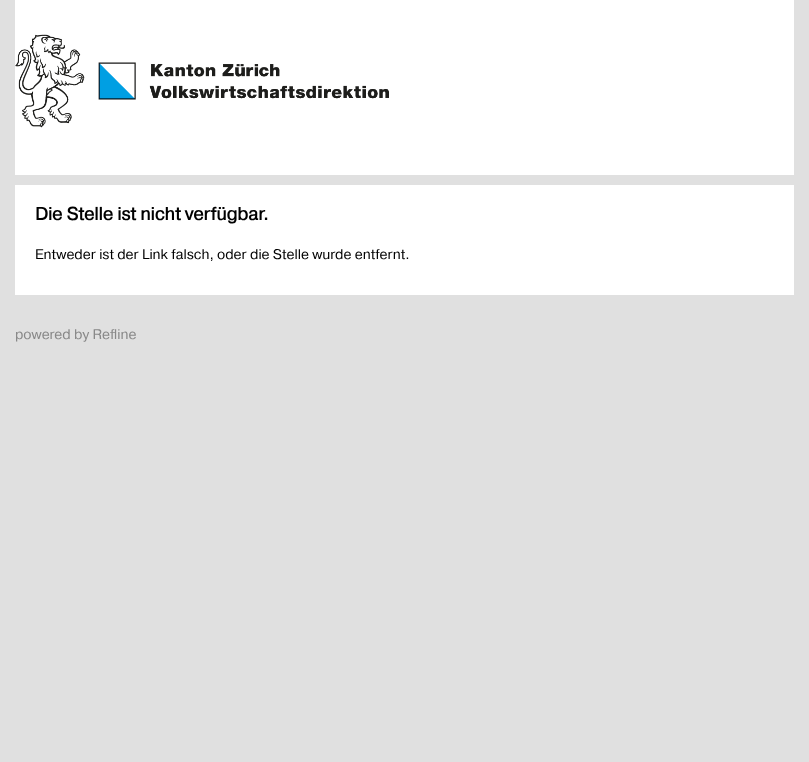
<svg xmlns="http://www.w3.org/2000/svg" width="809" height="762">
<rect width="100%" height="100%" fill="#e0e0e0"/>
<rect x="15" width="779" height="175" fill="#fff"/>
<image x="15" y="34" width="374" height="94" href="media/1.png"/>
<rect x="15" y="185" width="779" height="110" fill="#fff"/>
<text x="35" y="220" style="font-family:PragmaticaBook;font-size:18px;font-weight:bold;fill:#000">Die Stelle ist nicht verfügbar.</text>
<text x="35" y="259" style="font-family:PragmaticaBook;font-size:14px;fill:#000">Entweder ist der Link falsch, oder die Stelle wurde entfernt.</text>
<text x="15" y="339" style="font-family:PragmaticaBook;font-size:14px;fill:#888">powered by Refline</text>
</svg>
